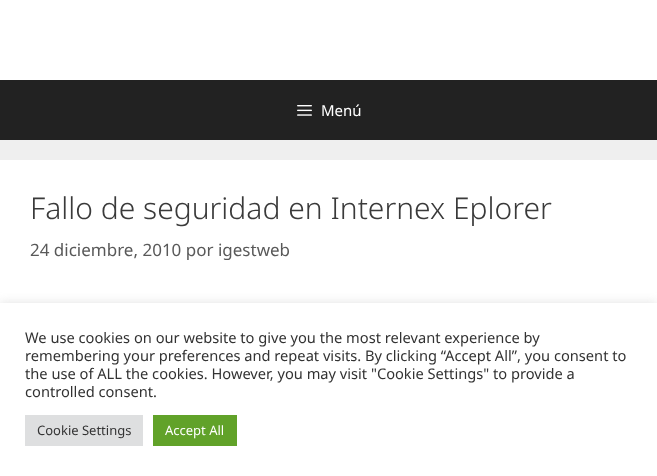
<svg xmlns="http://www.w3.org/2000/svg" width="657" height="476">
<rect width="100%" height="100%" fill="#efefef"/>
<rect width="657" height="80" fill="#fff"/>
<rect y="80" width="657" height="60" fill="#222"/>
<image x="297" y="105" width="15" height="11" href="media/1.png"/>
<text x="321" y="116" style="font-family:Noto Sans;font-size:15px;fill:#fff">Menú</text>
<rect y="160" width="657" height="143" fill="#fff"/>
<text x="30" y="219" style="font-family:Noto Sans;font-size:30px;font-weight:300;fill:#3a3a3a">Fallo de seguridad en Internex Eplorer</text>
<text x="30" y="256" style="font-family:Noto Sans;font-size:17px;fill:#595959">24 diciembre, 2010 por igestweb</text>
<rect y="302" width="657" height="173" fill="#acabab4d" filter="blur(5px)"/>
<rect y="303" width="657" height="173" fill="#fff"/>
<text x="25" y="343" style="font-family:Noto Sans;font-size:14.65px;fill:#333">We use cookies on our website to give you the most relevant experience by</text>
<text x="25" y="361" style="font-family:Noto Sans;font-size:14.65px;fill:#333">remembering your preferences and repeat visits. By clicking “Accept All”, you consent to</text>
<text x="25" y="379" style="font-family:Noto Sans;font-size:14.65px;fill:#333">the use of ALL the cookies. However, you may visit "Cookie Settings" to provide a</text>
<text x="25" y="397" style="font-family:Noto Sans;font-size:14.65px;fill:#333">controlled consent.</text>
<rect x="25" y="415" width="118" height="31" fill="#dedfe0"/>
<text x="37" y="435" style="font-family:Noto Sans;font-size:13px;fill:#333">Cookie Settings</text>
<rect x="153" y="415" width="84" height="31" fill="#61a229"/>
<text x="165" y="435" style="font-family:Noto Sans;font-size:13px;fill:#fff">Accept All</text>
</svg>
